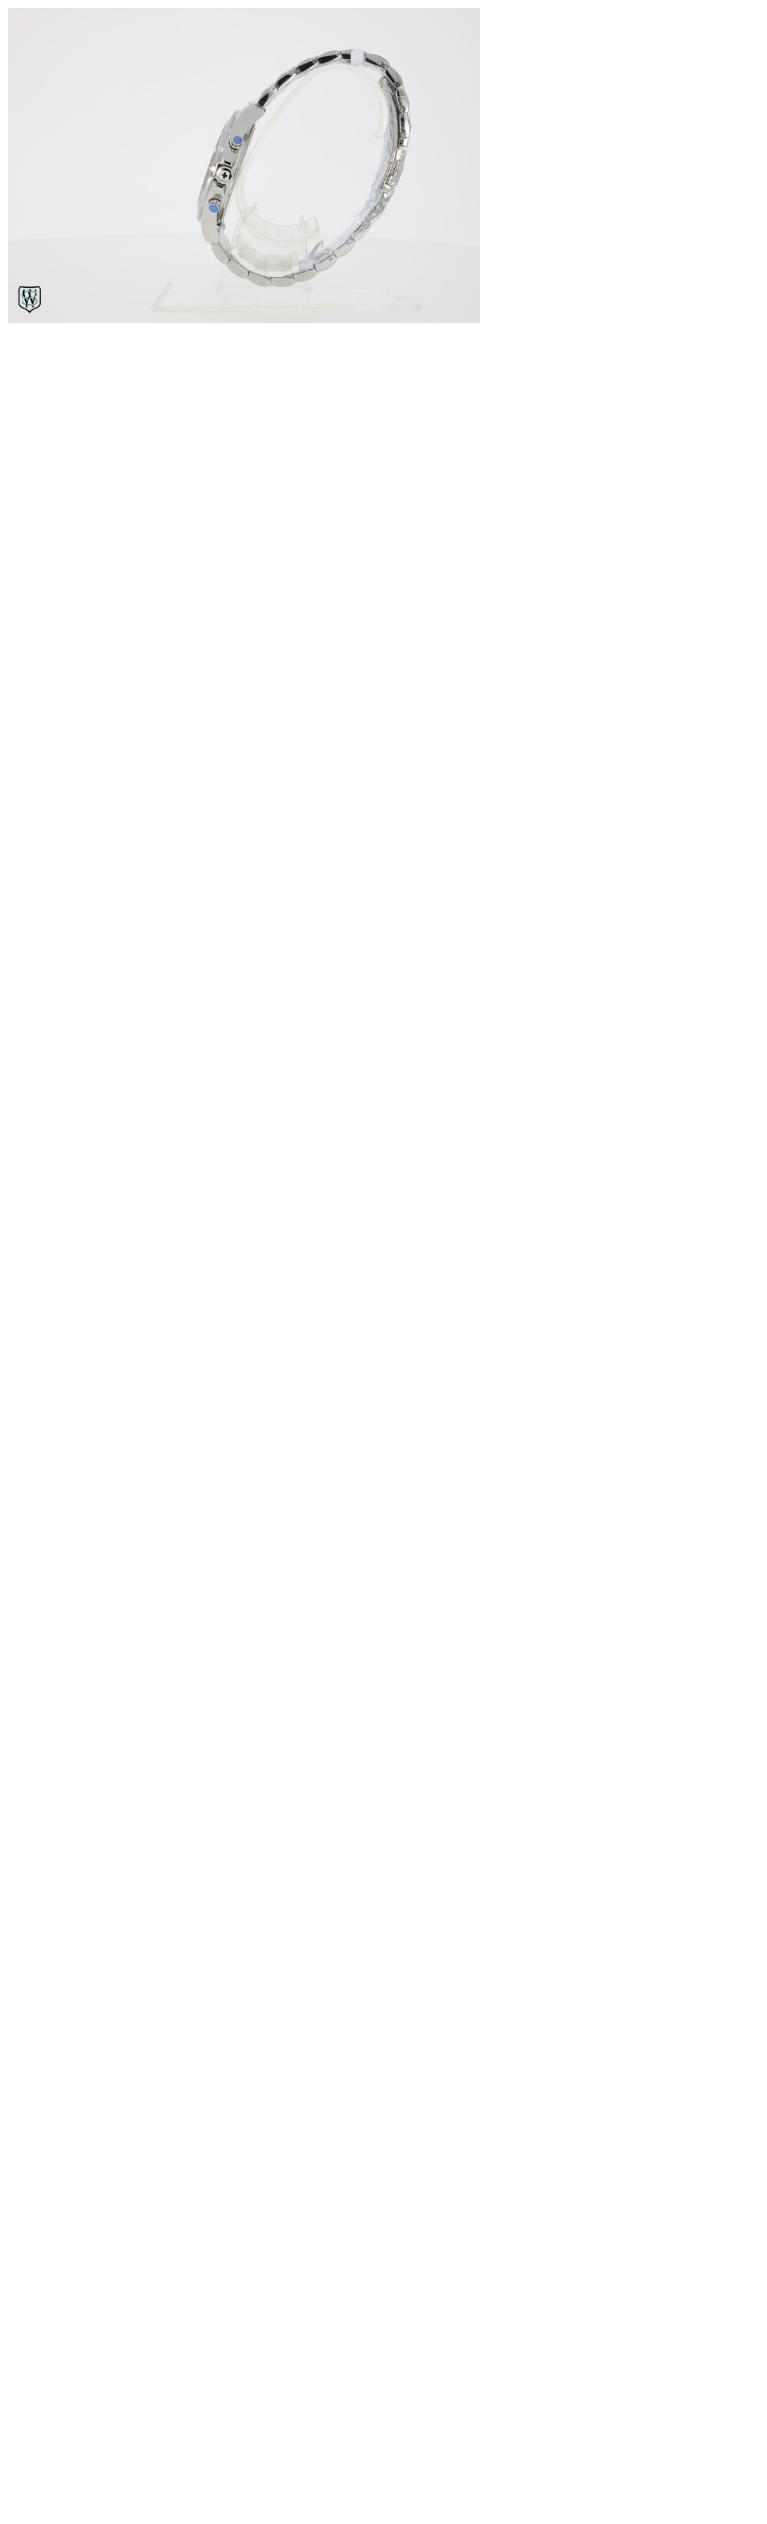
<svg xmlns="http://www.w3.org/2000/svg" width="767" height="2524">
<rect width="100%" height="100%" fill="#fff"/>
<image x="8" y="8" width="472" height="315" href="media/1.png"/>
</svg>
